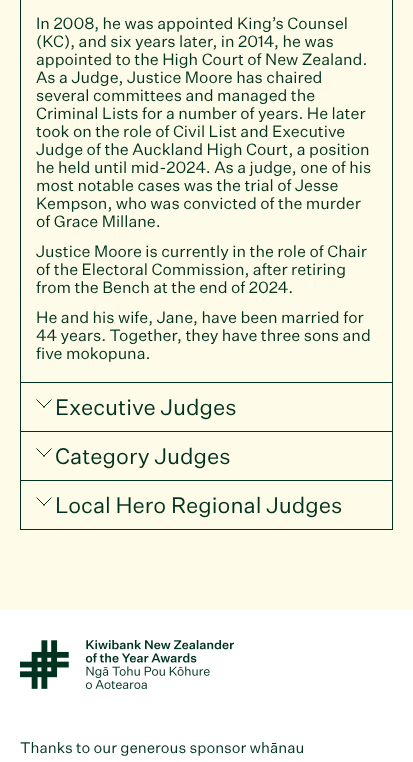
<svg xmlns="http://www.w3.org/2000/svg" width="413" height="762">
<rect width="100%" height="100%" fill="#fff"/>
<rect width="413" height="610" fill="#fefbe8"/>
<rect x="20.5" y="-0.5" width="372" height="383" fill="none" stroke="#00331f"/>
<text x="36" y="29" style="font-family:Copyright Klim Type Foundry;font-size:16px;fill:#00331f">In 2008, he was appointed King’s Counsel</text>
<text x="36" y="47" style="font-family:Copyright Klim Type Foundry;font-size:16px;fill:#00331f">(KC), and six years later, in 2014, he was</text>
<text x="36" y="65" style="font-family:Copyright Klim Type Foundry;font-size:16px;fill:#00331f">appointed to the High Court of New Zealand.</text>
<text x="36" y="83" style="font-family:Copyright Klim Type Foundry;font-size:16px;fill:#00331f">As a Judge, Justice Moore has chaired</text>
<text x="36" y="101" style="font-family:Copyright Klim Type Foundry;font-size:16px;fill:#00331f">several committees and managed the</text>
<text x="36" y="119" style="font-family:Copyright Klim Type Foundry;font-size:16px;fill:#00331f">Criminal Lists for a number of years. He later</text>
<text x="36" y="137" style="font-family:Copyright Klim Type Foundry;font-size:16px;fill:#00331f">took on the role of Civil List and Executive</text>
<text x="36" y="155" style="font-family:Copyright Klim Type Foundry;font-size:16px;fill:#00331f">Judge of the Auckland High Court, a position</text>
<text x="36" y="173" style="font-family:Copyright Klim Type Foundry;font-size:16px;fill:#00331f">he held until mid-2024. As a judge, one of his</text>
<text x="36" y="191" style="font-family:Copyright Klim Type Foundry;font-size:16px;fill:#00331f">most notable cases was the trial of Jesse</text>
<text x="36" y="209" style="font-family:Copyright Klim Type Foundry;font-size:16px;fill:#00331f">Kempson, who was convicted of the murder</text>
<text x="36" y="227" style="font-family:Copyright Klim Type Foundry;font-size:16px;fill:#00331f">of Grace Millane.</text>
<text x="36" y="257" style="font-family:Copyright Klim Type Foundry;font-size:16px;fill:#00331f">Justice Moore is currently in the role of Chair</text>
<text x="36" y="275" style="font-family:Copyright Klim Type Foundry;font-size:16px;fill:#00331f">of the Electoral Commission, after retiring</text>
<text x="36" y="293" style="font-family:Copyright Klim Type Foundry;font-size:16px;fill:#00331f">from the Bench at the end of 2024.</text>
<text x="36" y="323" style="font-family:Copyright Klim Type Foundry;font-size:16px;fill:#00331f">He and his wife, Jane, have been married for</text>
<text x="36" y="341" style="font-family:Copyright Klim Type Foundry;font-size:16px;fill:#00331f">44 years. Together, they have three sons and</text>
<text x="36" y="359" style="font-family:Copyright Klim Type Foundry;font-size:16px;fill:#00331f">five mokopuna.</text>
<rect x="392" y="383" width="1" height="147" fill="#00331f"/>
<rect x="20" y="431" width="373" height="1" fill="#00331f"/>
<rect x="20" y="383" width="1" height="49" fill="#00331f"/>
<path d="M36.5 399.5l8 8m-1 0l8-8m-15 49l8 8m-1 0l8-8" fill="none" stroke="#00331f"/>
<text x="55" y="415" style="font-family:Copyright Klim Type Foundry;font-size:22px;fill:#00331f">Executive Judges</text>
<rect x="20" y="480" width="373" height="1" fill="#00331f"/>
<rect x="20" y="432" width="1" height="49" fill="#00331f"/>
<text x="55" y="464" style="font-family:Copyright Klim Type Foundry;font-size:22px;fill:#00331f">Category Judges</text>
<rect x="20" y="529" width="373" height="1" fill="#00331f"/>
<rect x="20" y="481" width="1" height="49" fill="#00331f"/>
<path d="M36.5 497.5l8 8m-1 0l8-8" fill="none" stroke="#00331f"/>
<text x="55" y="513" style="font-family:Copyright Klim Type Foundry;font-size:22px;fill:#00331f">Local Hero Regional Judges</text>
<image x="20" y="640" width="214" height="49" href="media/1.png"/>
<text x="20" y="753" style="font-family:Copyright Klim Type Foundry;font-size:15px;fill:#00331f">Thanks to our generous sponsor whānau</text>
</svg>
